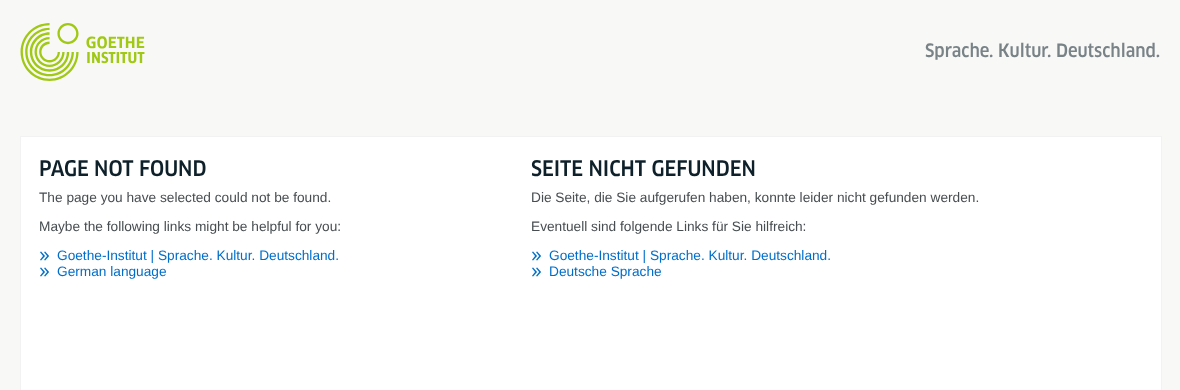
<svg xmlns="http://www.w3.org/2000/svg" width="1180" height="390">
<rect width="100%" height="100%" fill="#f8f8f6"/>
<image x="20" y="23" width="125" height="58" href="media/1.png"/>
<text x="925" y="57" style="font-family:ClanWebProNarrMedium;font-size:18px;font-weight:500;fill:#788287">Sprache. Kultur. Deutschland.</text>
<rect x="21" y="137" width="1140" height="253" fill="#fff"/>
<rect x="20" y="136" width="1142" height="1" fill="#f1f2f1"/>
<rect x="1161" y="136" width="1" height="254" fill="#f1f2f1"/>
<rect x="20" y="136" width="1" height="254" fill="#f1f2f1"/>
<text x="39" y="176" style="font-family:ClanWebProNarrMedium;font-size:21px;font-weight:500;fill:#0e2029">PAGE NOT FOUND</text>
<text x="39" y="202" style="font-family:Liberation Sans;font-size:13.7px;fill:#474d50">The page you have selected could not be found.</text>
<text x="39" y="231" style="font-family:Liberation Sans;font-size:13.7px;fill:#474d50">Maybe the following links might be helpful for you:</text>
<image x="40" y="251" width="9" height="10" href="media/2.png"/>
<text x="57" y="260" style="font-family:Liberation Sans;font-size:13.7px;fill:#006ec9">Goethe-Institut | Sprache. Kultur. Deutschland.</text>
<image x="40" y="267" width="9" height="10" href="media/2.png"/>
<text x="57" y="276" style="font-family:Liberation Sans;font-size:13.7px;fill:#006ec9">German language</text>
<text x="531" y="176" style="font-family:ClanWebProNarrMedium;font-size:21px;font-weight:500;fill:#0e2029">SEITE NICHT GEFUNDEN</text>
<text x="531" y="202" style="font-family:Liberation Sans;font-size:13.7px;fill:#474d50">Die Seite, die Sie aufgerufen haben, konnte leider nicht gefunden werden.</text>
<text x="531" y="231" style="font-family:Liberation Sans;font-size:13.7px;fill:#474d50">Eventuell sind folgende Links für Sie hilfreich:</text>
<image x="532" y="251" width="9" height="10" href="media/2.png"/>
<text x="549" y="260" style="font-family:Liberation Sans;font-size:13.7px;fill:#006ec9">Goethe-Institut | Sprache. Kultur. Deutschland.</text>
<image x="532" y="267" width="9" height="10" href="media/2.png"/>
<text x="549" y="276" style="font-family:Liberation Sans;font-size:13.7px;fill:#006ec9">Deutsche Sprache</text>
</svg>
